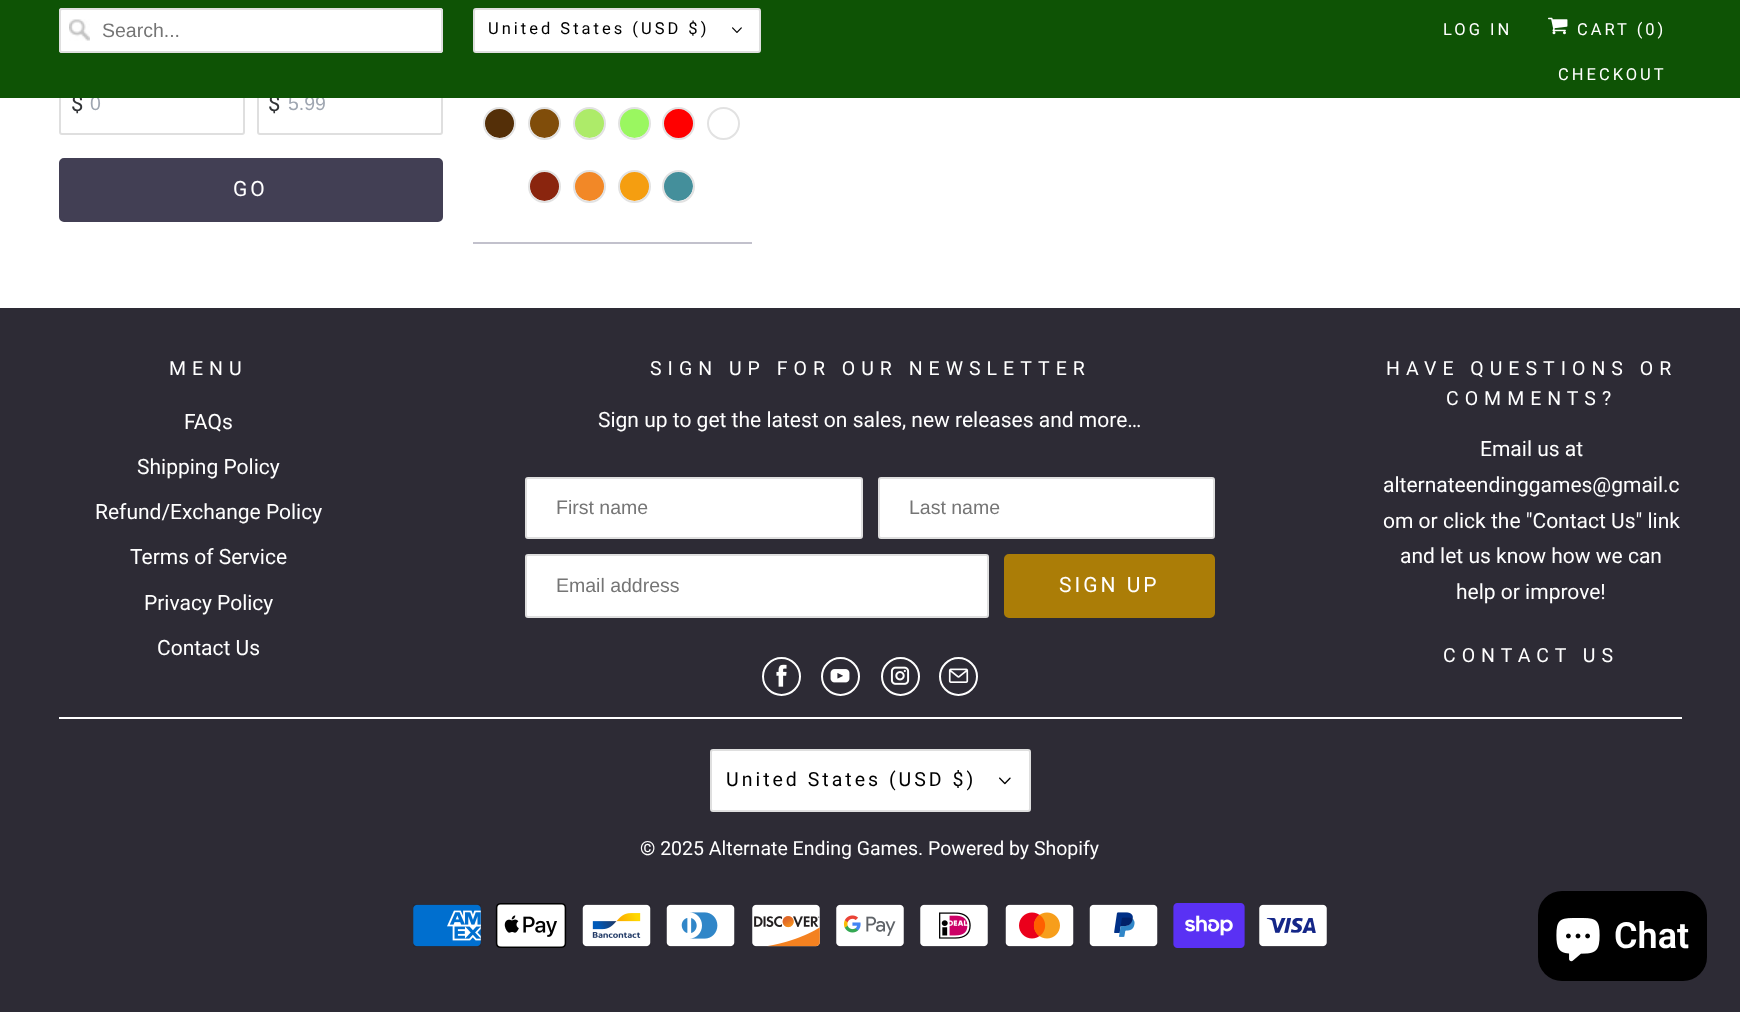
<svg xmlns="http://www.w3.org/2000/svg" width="1740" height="1012">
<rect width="100%" height="100%" fill="#fff"/>
<rect x="60" y="75" width="184" height="59" rx="2" fill="none" stroke="#dfdfdf" stroke-width="2"/>
<text x="71" y="111" style="font-family:Roboto;font-size:22px;fill:#313336">$</text>
<text x="90" y="110" style="font-family:Liberation Sans;font-size:19.5px;fill:#9fa6b1">0</text>
<rect x="258" y="75" width="184" height="59" rx="2" fill="none" stroke="#dfdfdf" stroke-width="2"/>
<text x="268" y="111" style="font-family:Roboto;font-size:22px;fill:#313336">$</text>
<text x="288" y="110" style="font-family:Liberation Sans;font-size:19.5px;fill:#9fa6b1">5.99</text>
<rect width="1740" height="98" fill="#0e5305"/>
<rect x="59" y="8" width="384" height="45" rx="3" fill="#fff"/>
<image x="69" y="19" width="21" height="22" href="media/1.png"/>
<rect x="60" y="9" width="382" height="43" rx="2" fill="none" stroke="#dfdfdf" stroke-width="2"/>
<text x="102" y="37" style="font-family:Liberation Sans;font-size:19.5px;fill:#757575">Search...</text>
<rect x="474" y="9" width="286" height="43" rx="2" fill="#fff" stroke="#dfdfdf" stroke-width="2"/>
<text x="488" y="34" style="font-family:Roboto;font-size:16.5px;letter-spacing:3px;fill:#000">United States (USD $)</text>
<image x="732" y="27" width="10" height="6" href="media/2.png"/>
<text x="1443" y="35" style="font-family:Roboto;font-size:16.5px;letter-spacing:3px;fill:#fff">LOG IN</text>
<image x="1548" y="17" width="20" height="18" href="media/3.png"/>
<text x="1577" y="35" style="font-family:Roboto;font-size:16.5px;letter-spacing:3px;fill:#fff">CART (0)</text>
<text x="1558" y="80" style="font-family:Roboto;font-size:16.5px;letter-spacing:3px;fill:#fff">CHECKOUT</text>
<rect x="60" y="159" width="382" height="62" rx="4" fill="#423f54" stroke="#423f54" stroke-width="2"/>
<text x="233" y="196" style="font-family:Roboto;font-size:21px;letter-spacing:3px;fill:#fff">GO</text>
<rect x="473" y="242" width="279" height="2" fill="#c2c1cc"/>
<image x="485" y="109" width="29" height="29" href="media/4.png"/>
<circle cx="499.5" cy="123.5" r="15.5" fill="none" stroke="#e2e2e2" stroke-width="2"/>
<image x="530" y="109" width="29" height="29" href="media/5.png"/>
<circle cx="544.5" cy="123.5" r="15.5" fill="none" stroke="#e2e2e2" stroke-width="2"/>
<image x="575" y="109" width="29" height="29" href="media/6.png"/>
<circle cx="589.5" cy="123.5" r="15.5" fill="none" stroke="#e2e2e2" stroke-width="2"/>
<image x="620" y="109" width="29" height="29" href="media/7.png"/>
<circle cx="634.5" cy="123.5" r="15.5" fill="none" stroke="#e2e2e2" stroke-width="2"/>
<circle cx="678.5" cy="123.5" r="15.5" fill="#f00" stroke="#e2e2e2" stroke-width="2"/>
<circle cx="723.5" cy="123.5" r="15.5" fill="none" stroke="#e2e2e2" stroke-width="2"/>
<image x="530" y="172" width="29" height="29" href="media/8.png"/>
<circle cx="544.5" cy="186.5" r="15.5" fill="none" stroke="#e2e2e2" stroke-width="2"/>
<image x="575" y="172" width="29" height="29" href="media/9.png"/>
<circle cx="589.5" cy="186.5" r="15.5" fill="none" stroke="#e2e2e2" stroke-width="2"/>
<image x="620" y="172" width="29" height="29" href="media/10.png"/>
<circle cx="634.5" cy="186.5" r="15.5" fill="none" stroke="#e2e2e2" stroke-width="2"/>
<image x="664" y="171" width="29" height="30" href="media/11.png"/>
<circle cx="678.5" cy="186.5" r="15.5" fill="none" stroke="#e2e2e2" stroke-width="2"/>
<rect y="308" width="1740" height="704" fill="#2d2b35"/>
<text x="169" y="375" style="font-family:Roboto;font-size:19.5px;letter-spacing:6px;fill:#fff">MENU</text>
<text x="184" y="429" style="font-family:Roboto;font-size:21px;fill:#fff">FAQs</text>
<text x="137" y="474" style="font-family:Roboto;font-size:21px;fill:#fff">Shipping Policy</text>
<text x="95" y="519" style="font-family:Roboto;font-size:21px;fill:#fff">Refund/Exchange Policy</text>
<text x="130" y="564" style="font-family:Roboto;font-size:21px;fill:#fff">Terms of Service</text>
<text x="144" y="610" style="font-family:Roboto;font-size:21px;fill:#fff">Privacy Policy</text>
<text x="157" y="655" style="font-family:Roboto;font-size:21px;fill:#fff">Contact Us</text>
<text x="650" y="375" style="font-family:Roboto;font-size:19.5px;letter-spacing:6px;fill:#fff">SIGN UP FOR OUR NEWSLETTER</text>
<text x="598" y="427" style="font-family:Roboto;font-size:21px;fill:#fff">Sign up to get the latest on sales, new releases and more…</text>
<rect x="526" y="478" width="336" height="60" rx="2" fill="#fff" stroke="#dfdfdf" stroke-width="2"/>
<text x="556" y="514" style="font-family:Liberation Sans;font-size:19.5px;fill:#757575">First name</text>
<rect x="879" y="478" width="335" height="60" rx="2" fill="#fff" stroke="#dfdfdf" stroke-width="2"/>
<text x="909" y="514" style="font-family:Liberation Sans;font-size:19.5px;fill:#757575">Last name</text>
<rect x="526" y="555" width="462" height="62" rx="2" fill="#fff" stroke="#dfdfdf" stroke-width="2"/>
<text x="556" y="592" style="font-family:Liberation Sans;font-size:19.5px;fill:#757575">Email address</text>
<rect x="1005" y="555" width="209" height="62" rx="4" fill="#ab7d07" stroke="#ab7d07" stroke-width="2"/>
<text x="1059" y="592" style="font-family:Roboto;font-size:21px;letter-spacing:3px;fill:#fff">SIGN UP</text>
<circle cx="781.5" cy="676.5" r="18.5" fill="none" stroke="#fff" stroke-width="2"/>
<image x="776" y="664" width="11" height="23" href="media/12.png"/>
<circle cx="840.5" cy="676.5" r="18.5" fill="none" stroke="#fff" stroke-width="2"/>
<image x="830" y="669" width="20" height="14" href="media/13.png"/>
<circle cx="900.5" cy="676.5" r="18.5" fill="none" stroke="#fff" stroke-width="2"/>
<image x="890" y="666" width="20" height="19" href="media/14.png"/>
<circle cx="958.5" cy="676.5" r="18.5" fill="none" stroke="#fff" stroke-width="2"/>
<image x="948" y="668" width="21" height="15" href="media/15.png"/>
<text x="1386" y="375" style="font-family:Roboto;font-size:19.5px;letter-spacing:6px;fill:#fff">HAVE QUESTIONS OR</text>
<text x="1446" y="405" style="font-family:Roboto;font-size:19.5px;letter-spacing:6px;fill:#fff">COMMENTS?</text>
<text x="1480" y="456" style="font-family:Roboto;font-size:21px;fill:#fff">Email us at</text>
<text x="1383" y="492" style="font-family:Roboto;font-size:21px;fill:#fff">alternateendinggames@gmail.c</text>
<text x="1383" y="528" style="font-family:Roboto;font-size:21px;fill:#fff">om or click the "Contact Us" link</text>
<text x="1400" y="563" style="font-family:Roboto;font-size:21px;fill:#fff">and let us know how we can</text>
<text x="1456" y="599" style="font-family:Roboto;font-size:21px;fill:#fff">help or improve!</text>
<text x="1443" y="662" style="font-family:Roboto;font-size:19.5px;letter-spacing:6px;fill:#fff">CONTACT US</text>
<rect x="59" y="717" width="1623" height="2" fill="#fff"/>
<rect x="711" y="750" width="319" height="61" rx="2" fill="#fff" stroke="#dfdfdf" stroke-width="2"/>
<text x="726" y="786" style="font-family:Roboto;font-size:19.5px;letter-spacing:3px;fill:#000">United States (USD $)</text>
<image x="999" y="777" width="12" height="8" href="media/16.png"/>
<text x="640" y="855" style="font-family:Roboto;font-size:19.5px;fill:#fff">© 2025 Alternate Ending Games. Powered by Shopify</text>
<image x="413" y="904" width="68" height="43" href="media/17.png"/>
<image x="495" y="903" width="72" height="45" href="media/18.png"/>
<image x="582" y="904" width="69" height="43" href="media/19.png"/>
<image x="666" y="904" width="69" height="43" href="media/20.png"/>
<image x="752" y="904" width="68" height="43" href="media/21.png"/>
<image x="836" y="904" width="68" height="43" href="media/22.png"/>
<image x="920" y="904" width="68" height="43" href="media/23.png"/>
<image x="1005" y="904" width="69" height="43" href="media/24.png"/>
<image x="1089" y="904" width="69" height="43" href="media/25.png"/>
<image x="1173" y="903" width="72" height="45" href="media/26.png"/>
<image x="1259" y="904" width="68" height="43" href="media/27.png"/>
<rect x="1538" y="891" width="169" height="90" rx="24" fill="#000"/>
<image x="1556" y="918" width="44" height="44" href="media/28.png"/>
<text x="1614" y="948" style="font-family:Roboto;font-size:36px;font-weight:600;fill:#fff">Chat</text>
</svg>
